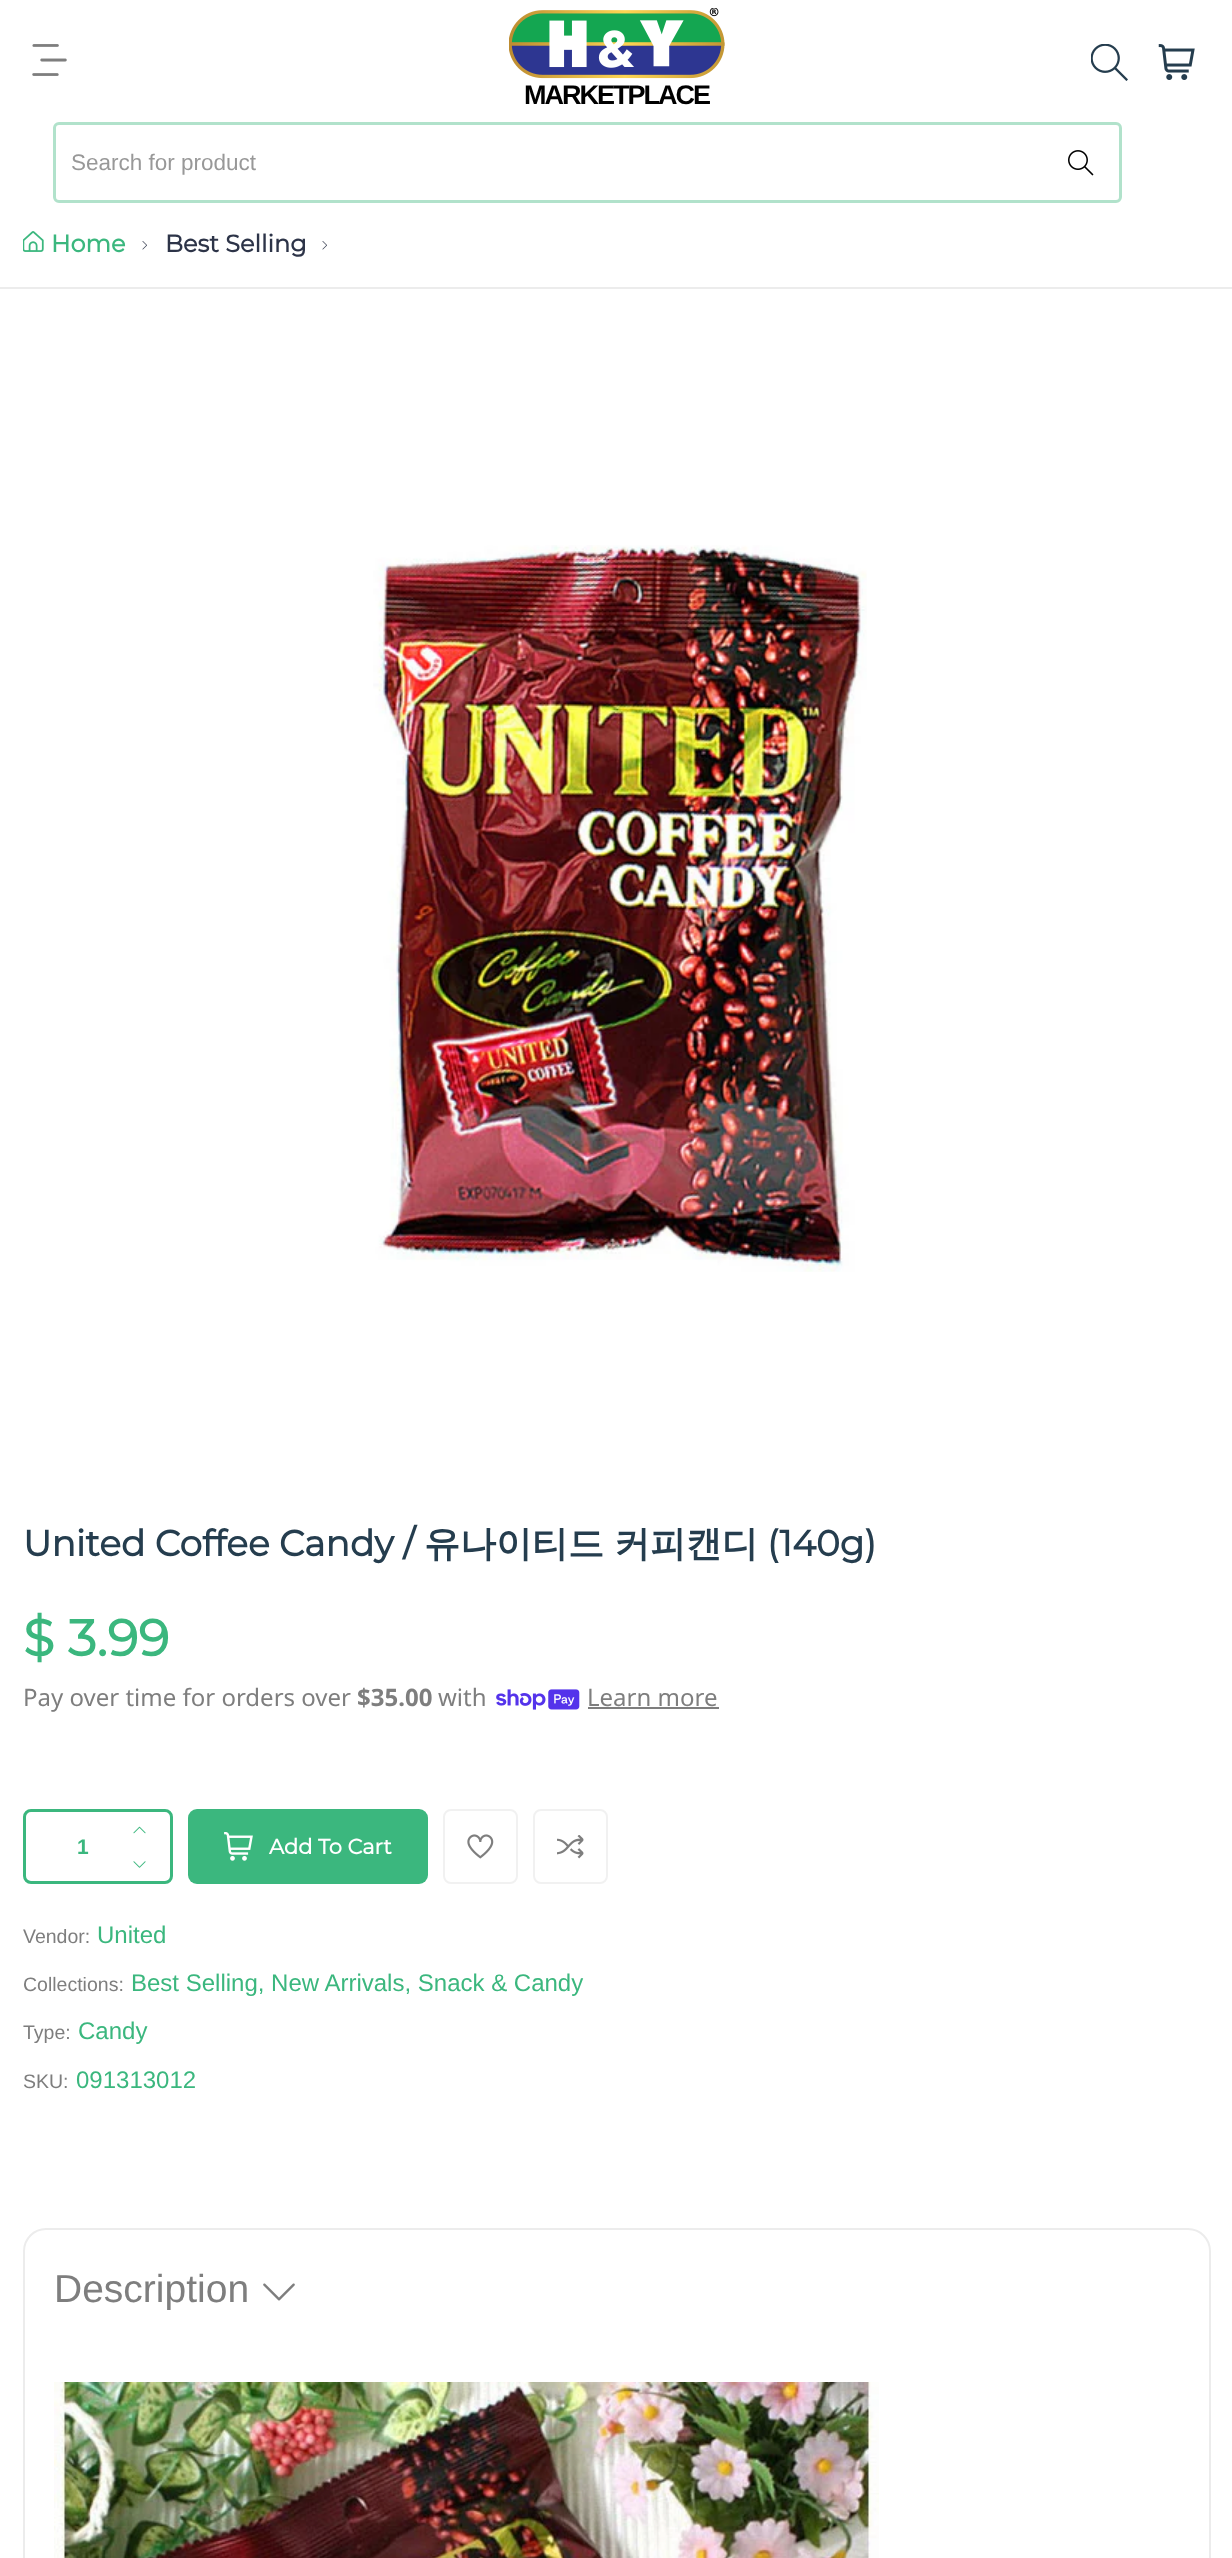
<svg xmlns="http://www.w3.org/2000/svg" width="1232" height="2558">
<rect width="100%" height="100%" fill="#fff"/>
<image x="32" y="44" width="35" height="32" href="media/1.png"/>
<image x="1091" y="44" width="37" height="37" href="media/2.png"/>
<image x="1158" y="44" width="37" height="36" href="media/3.png"/>
<image x="509" y="8" width="216" height="71" href="media/4.png"/>
<text x="524" y="104" style="font-family:Liberation Sans;font-size:27px;font-weight:bold;letter-spacing:-2px;fill:#000">MARKETPLACE</text>
<rect x="54.5" y="123.5" width="1066" height="78" rx="4.5" fill="none" stroke="#b1e2cb" stroke-width="3"/>
<text x="71" y="170" style="font-family:Liberation Sans;font-size:22.5px;fill:#989898">Search for product</text>
<image x="1068" y="150" width="26" height="26" href="media/5.png"/>
<image x="142" y="241" width="5" height="9" href="media/6.png"/>
<image x="23" y="231" width="21" height="21" href="media/7.png"/>
<text x="51" y="252" style="font-family:Montserrat;font-size:24px;font-weight:bold;fill:#3bb77e">Home</text>
<image x="322" y="241" width="5" height="9" href="media/6.png"/>
<text x="165" y="252" style="font-family:Montserrat;font-size:24px;font-weight:bold;fill:#2d3448">Best Selling</text>
<rect y="287" width="1232" height="2" fill="#ececec"/>
<image x="373" y="545" width="494" height="727" href="media/8.png"/>
<text x="23" y="1556" style="font-family:Montserrat;font-size:36px;font-weight:bold;fill:#253d4e">United Coffee Candy /</text>
<text x="424" y="1556" style="font-family:WenQuanYi Zen Hei;font-size:36px;font-weight:bold;fill:#253d4e">유나이티드</text>
<text x="614" y="1556" style="font-family:WenQuanYi Zen Hei;font-size:36px;font-weight:bold;fill:#253d4e">커피캔디</text>
<text x="767" y="1556" style="font-family:Montserrat;font-size:36px;font-weight:bold;fill:#253d4e">(140g)</text>
<text x="23" y="1656" style="font-family:Montserrat;font-size:51px;font-weight:bold;fill:#3bb77e">$ 3.99</text>
<text x="23" y="1706" style="font-family:Noto Sans;font-size:24px;fill:#7e7e7e">Pay over time for orders over</text>
<text x="357" y="1706" style="font-family:Noto Sans;font-size:24px;font-weight:bold;fill:#7e7e7e">$35.00</text>
<text x="438" y="1706" style="font-family:Noto Sans;font-size:24px;fill:#7e7e7e">with</text>
<image x="496" y="1689" width="84" height="21" href="media/9.png"/>
<text x="587" y="1706" style="font-family:Noto Sans;font-size:24px;fill:#7e7e7e">Learn more</text>
<rect x="588" y="1707" width="131" height="2" fill="#7e7e7e"/>
<rect x="24.5" y="1810.5" width="147" height="72" rx="6.5" fill="none" stroke="#3bb77e" stroke-width="3"/>
<image x="133" y="1826" width="13" height="8" href="media/10.png"/>
<text x="77" y="1854" style="font-family:Liberation Sans;font-size:21px;font-weight:bold;fill:#3bb77e">1</text>
<image x="133" y="1861" width="13" height="7" href="media/11.png"/>
<rect x="188" y="1809" width="240" height="75" rx="9" fill="#3bb77e"/>
<image x="224" y="1832" width="29" height="29" href="media/12.png"/>
<text x="269" y="1854" style="font-family:Montserrat;font-size:21px;font-weight:bold;fill:#fff">Add To Cart</text>
<rect x="444" y="1810" width="73" height="73" rx="7" fill="none" stroke="#f1f1f1" stroke-width="2"/>
<image x="467" y="1834" width="27" height="25" href="media/13.png"/>
<rect x="534" y="1810" width="73" height="73" rx="7" fill="none" stroke="#f1f1f1" stroke-width="2"/>
<image x="557" y="1835" width="27" height="24" href="media/14.png"/>
<text x="23" y="1943" style="font-family:Liberation Sans;font-size:19.5px;fill:#7e7e7e">Vendor:</text>
<text x="97" y="1943" style="font-family:Liberation Sans;font-size:24px;fill:#3bb77e">United</text>
<text x="23" y="1991" style="font-family:Liberation Sans;font-size:19.5px;fill:#7e7e7e">Collections:</text>
<text x="131" y="1991" style="font-family:Liberation Sans;font-size:24px;fill:#3bb77e">Best Selling, New Arrivals, Snack &amp; Candy</text>
<text x="23" y="2039" style="font-family:Liberation Sans;font-size:19.5px;fill:#7e7e7e">Type:</text>
<text x="78" y="2039" style="font-family:Liberation Sans;font-size:24px;fill:#3bb77e">Candy</text>
<text x="23" y="2088" style="font-family:Liberation Sans;font-size:19.5px;fill:#7e7e7e">SKU:</text>
<text x="76" y="2088" style="font-family:Liberation Sans;font-size:24px;fill:#3bb77e">091313012</text>
<rect x="24" y="2229" width="1186" height="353" rx="22" fill="none" stroke="#ececec" stroke-width="2"/>
<text x="54" y="2302" style="font-family:Liberation Sans;font-size:39px;fill:#7e7e7e">Description</text>
<image x="263" y="2283" width="32" height="18" href="media/15.png"/>
<image x="54" y="2382" width="825" height="176" href="media/16.png"/>
</svg>
